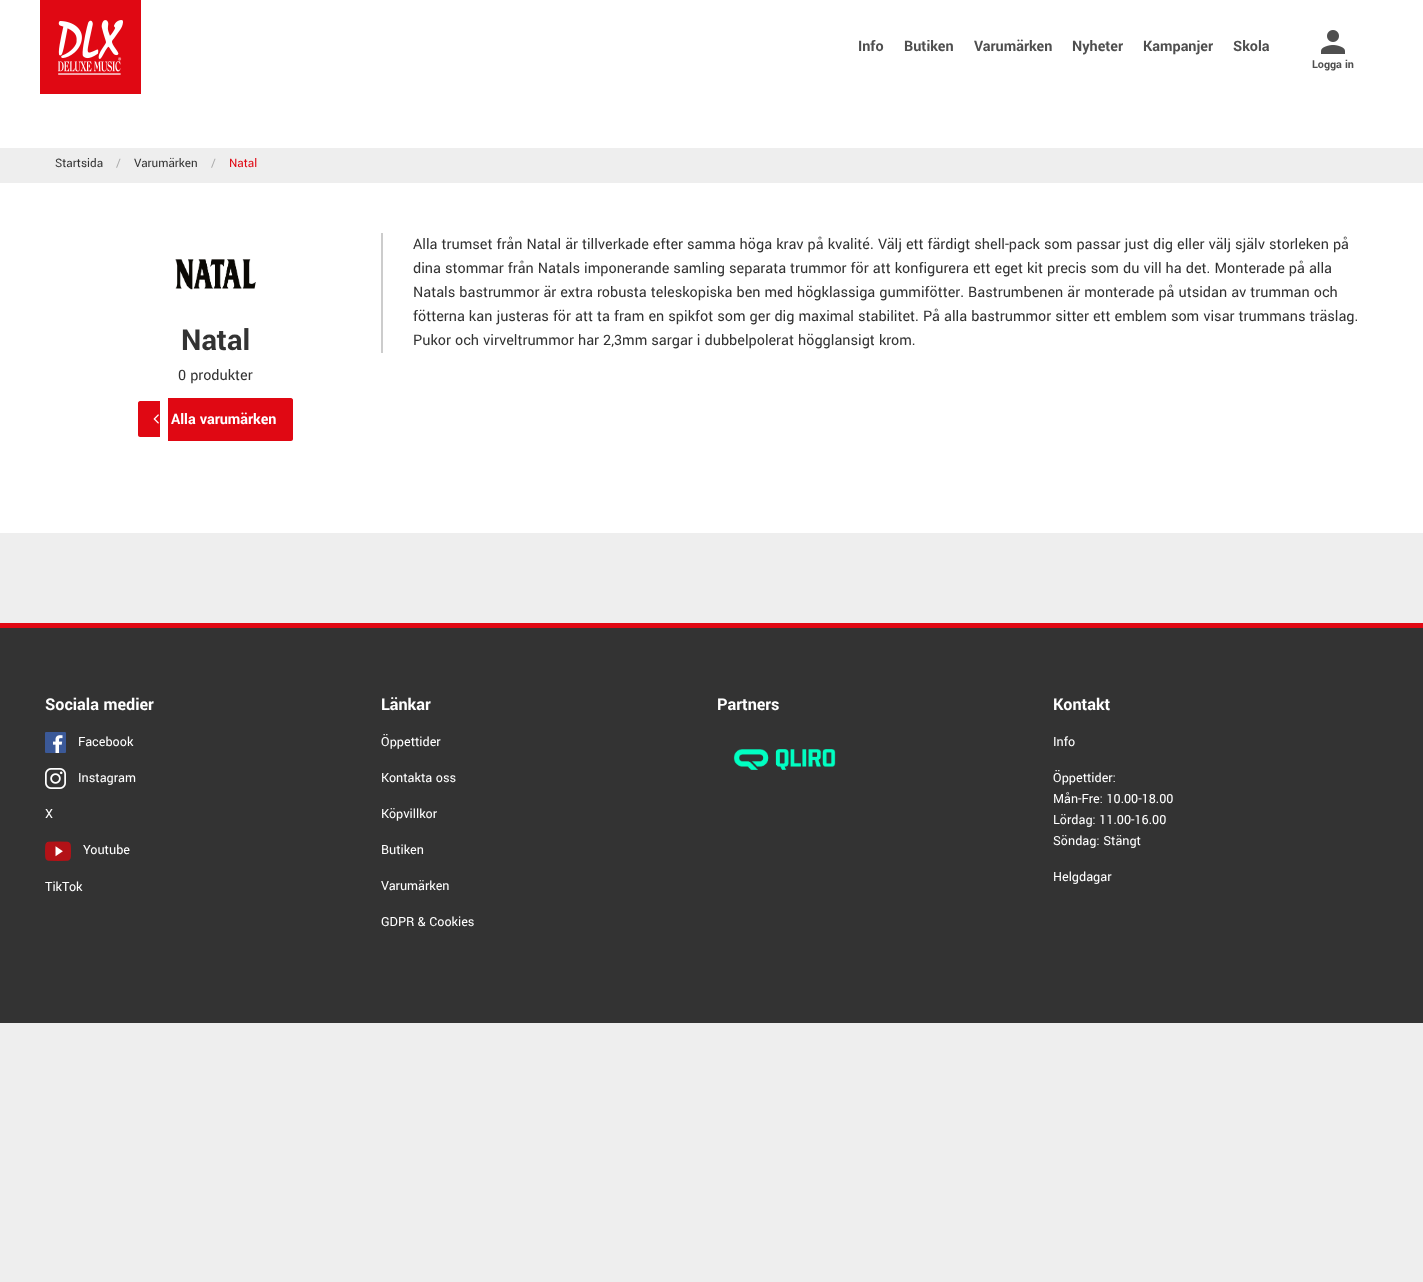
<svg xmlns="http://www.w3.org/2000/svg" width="1423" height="1282">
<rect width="100%" height="100%" fill="#eee"/>
<rect width="1423" height="148" fill="#fff"/>
<image x="40" y="0" width="101" height="94" href="media/1.png"/>
<text x="858" y="51" style="font-family:Yantramanav;font-size:16px;font-weight:bold;fill:#4f4f4f">Info</text>
<text x="904" y="51" style="font-family:Yantramanav;font-size:16px;font-weight:bold;fill:#4f4f4f">Butiken</text>
<text x="974" y="51" style="font-family:Yantramanav;font-size:16px;font-weight:bold;fill:#4f4f4f">Varumärken</text>
<text x="1072" y="51" style="font-family:Yantramanav;font-size:16px;font-weight:bold;fill:#4f4f4f">Nyheter</text>
<text x="1143" y="51" style="font-family:Yantramanav;font-size:16px;font-weight:bold;fill:#4f4f4f">Kampanjer</text>
<text x="1233" y="51" style="font-family:Yantramanav;font-size:16px;font-weight:bold;fill:#4f4f4f">Skola</text>
<image x="1321" y="30" width="24" height="24" href="media/2.png"/>
<text x="1312" y="68" style="font-family:Yantramanav;font-size:12px;font-weight:bold;fill:#4f4f4f">Logga in</text>
<text x="55" y="167" style="font-family:Yantramanav;font-size:13px;fill:#333">Startsida</text>
<text x="116" y="167" style="font-family:Yantramanav;font-size:13px;fill:#aaa">/</text>
<text x="134" y="167" style="font-family:Yantramanav;font-size:13px;fill:#333">Varumärken</text>
<text x="211" y="167" style="font-family:Yantramanav;font-size:13px;fill:#aaa">/</text>
<text x="229" y="167" style="font-family:Yantramanav;font-size:13px;fill:#e00813">Natal</text>
<rect y="183" width="1423" height="350" fill="#fff"/>
<rect x="381" y="233" width="2" height="120" fill="#ccc"/>
<text x="413" y="249" style="font-family:Yantramanav;font-size:16px;fill:#333">Alla trumset från Natal är tillverkade efter samma höga krav på kvalité. Välj ett färdigt shell-pack som passar just dig eller välj själv storleken på</text>
<text x="413" y="273" style="font-family:Yantramanav;font-size:16px;fill:#333">dina stommar från Natals imponerande samling separata trummor för att konfigurera ett eget kit precis som du vill ha det. Monterade på alla</text>
<text x="413" y="297" style="font-family:Yantramanav;font-size:16px;fill:#333">Natals bastrummor är extra robusta teleskopiska ben med högklassiga gummifötter. Bastrumbenen är monterade på utsidan av trumman och</text>
<text x="413" y="321" style="font-family:Yantramanav;font-size:16px;fill:#333">fötterna kan justeras för att ta fram en spikfot som ger dig maximal stabilitet. På alla bastrummor sitter ett emblem som visar trummans träslag.</text>
<text x="413" y="345" style="font-family:Yantramanav;font-size:16px;fill:#333">Pukor och virveltrummor har 2,3mm sargar i dubbelpolerat högglansigt krom.</text>
<image x="175" y="259" width="81" height="31" href="media/3.png"/>
<text x="181" y="350" style="font-family:Yantramanav;font-size:32px;font-weight:bold;fill:#333">Natal</text>
<text x="178" y="380" style="font-family:Yantramanav;font-size:16px;fill:#333">0 produkter</text>
<path d="M140 401h20v36h-20c-1 0-2-1-2-2v-32c0-1 1-2 2-2z" fill="#e00813"/>
<path d="M168 398h123c1 0 2 1 2 2v39c0 1-1 2-2 2h-123z" fill="#e00813"/>
<image x="153" y="414" width="6" height="10" href="media/4.png"/>
<text x="171" y="424" style="font-family:Yantramanav;font-size:16px;font-weight:bold;fill:#fff">Alla varumärken</text>
<rect y="628" width="1423" height="395" fill="#333"/>
<rect y="623" width="1423" height="5" fill="#e00813"/>
<text x="45" y="710" style="font-family:Yantramanav;font-size:18px;font-weight:bold;fill:#fff">Sociala medier</text>
<rect x="52" y="735" width="11" height="18" fill="#fff"/>
<image x="45" y="732" width="21" height="21" href="media/5.png"/>
<text x="78" y="746" style="font-family:Yantramanav;font-size:14px;fill:#fff">Facebook</text>
<image x="45" y="768" width="21" height="21" href="media/6.png"/>
<text x="78" y="782" style="font-family:Yantramanav;font-size:14px;fill:#fff">Instagram</text>
<text x="45" y="818" style="font-family:Yantramanav;font-size:14px;fill:#fff">X</text>
<rect x="46" y="842" width="19" height="17" rx="4" fill="#fff"/>
<image x="45" y="841" width="26" height="20" href="media/7.png"/>
<text x="83" y="854" style="font-family:Yantramanav;font-size:14px;fill:#fff">Youtube</text>
<text x="45" y="891" style="font-family:Yantramanav;font-size:14px;fill:#fff">TikTok</text>
<text x="381" y="710" style="font-family:Yantramanav;font-size:18px;font-weight:bold;fill:#fff">Länkar</text>
<text x="381" y="746" style="font-family:Yantramanav;font-size:14px;fill:#fff">Öppettider</text>
<text x="381" y="782" style="font-family:Yantramanav;font-size:14px;fill:#fff">Kontakta oss</text>
<text x="381" y="818" style="font-family:Yantramanav;font-size:14px;fill:#fff">Köpvillkor</text>
<text x="381" y="854" style="font-family:Yantramanav;font-size:14px;fill:#fff">Butiken</text>
<text x="381" y="890" style="font-family:Yantramanav;font-size:14px;fill:#fff">Varumärken</text>
<text x="381" y="926" style="font-family:Yantramanav;font-size:14px;fill:#fff">GDPR &amp; Cookies</text>
<text x="717" y="710" style="font-family:Yantramanav;font-size:18px;font-weight:bold;fill:#fff">Partners</text>
<image x="733" y="749" width="103" height="21" href="media/8.png"/>
<text x="1053" y="710" style="font-family:Yantramanav;font-size:18px;font-weight:bold;fill:#fff">Kontakt</text>
<text x="1053" y="746" style="font-family:Yantramanav;font-size:14px;fill:#fff">Info</text>
<text x="1053" y="782" style="font-family:Yantramanav;font-size:14px;fill:#fff">Öppettider:</text>
<text x="1053" y="803" style="font-family:Yantramanav;font-size:14px;fill:#fff">Mån-Fre: 10.00-18.00</text>
<text x="1053" y="824" style="font-family:Yantramanav;font-size:14px;fill:#fff">Lördag: 11.00-16.00</text>
<text x="1053" y="845" style="font-family:Yantramanav;font-size:14px;fill:#fff">Söndag: Stängt</text>
<text x="1053" y="881" style="font-family:Yantramanav;font-size:14px;fill:#fff">Helgdagar</text>
</svg>
